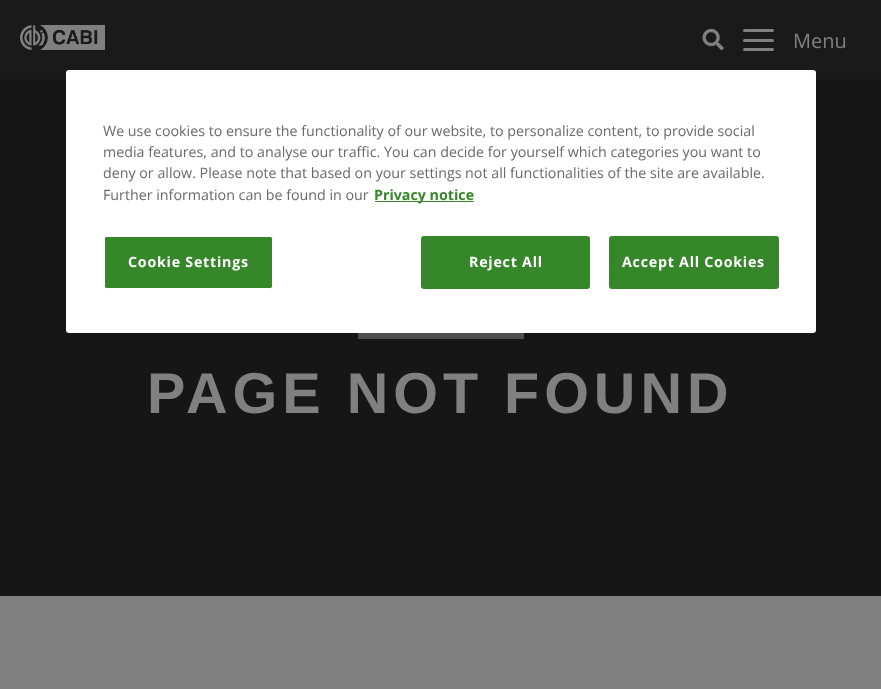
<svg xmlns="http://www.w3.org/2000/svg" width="881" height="689">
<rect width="100%" height="100%" fill="#808080"/>
<rect width="881" height="79" fill="#1a1a1a"/>
<image x="20" y="25" width="85" height="25" href="media/1.png"/>
<image x="702" y="28" width="22" height="23" href="media/2.png"/>
<rect x="743" y="39" width="31" height="3" rx="1.5" fill="#808080"/>
<rect x="743" y="29" width="31" height="3" rx="1.5" fill="#808080"/>
<rect x="743" y="48" width="31" height="3" rx="1.5" fill="#808080"/>
<text x="793" y="48" style="font-family:Open Sans;font-size:20px;fill:#808080">Menu</text>
<rect y="79" width="881" height="517" fill="#161616"/>
<rect x="358" y="333" width="166" height="6" fill="#4e4e4e"/>
<text x="147" y="413" style="font-family:Liberation Sans;font-size:57.5px;font-weight:bold;letter-spacing:5px;fill:#808080">PAGE NOT FOUND</text>
<rect x="66" y="70" width="750" height="263" rx="3" fill="#fff"/>
<text x="103" y="136" style="font-family:Open Sans;font-size:14.25px;fill:#696969">We use cookies to ensure the functionality of our website, to personalize content, to provide social</text>
<text x="103" y="157" style="font-family:Open Sans;font-size:14.25px;fill:#696969">media features, and to analyse our traffic. You can decide for yourself which categories you want to</text>
<text x="103" y="178" style="font-family:Open Sans;font-size:14.25px;fill:#696969">deny or allow. Please note that based on your settings not all functionalities of the site are available.</text>
<text x="103" y="200" style="font-family:Open Sans;font-size:14.25px;fill:#696969">Further information can be found in our</text>
<rect x="375" y="201" width="99" height="1" fill="#368729"/>
<text x="374" y="200" style="font-family:Open Sans;font-size:14.25px;font-weight:bold;fill:#368729">Privacy notice</text>
<rect x="104.5" y="236.5" width="168" height="52" rx="2" fill="#368729" stroke="#fff"/>
<text x="128" y="267" style="font-family:Open Sans;font-size:14.25px;font-weight:bold;letter-spacing:0.75px;fill:#fff">Cookie Settings</text>
<rect x="421.5" y="236.5" width="168" height="52" rx="2" fill="#368729" stroke="#368729"/>
<text x="469" y="267" style="font-family:Open Sans;font-size:14.25px;font-weight:bold;letter-spacing:0.75px;fill:#fff">Reject All</text>
<rect x="609.5" y="236.5" width="169" height="52" rx="2" fill="#368729" stroke="#368729"/>
<text x="622" y="267" style="font-family:Open Sans;font-size:14.25px;font-weight:bold;letter-spacing:0.75px;fill:#fff">Accept All Cookies</text>
</svg>
